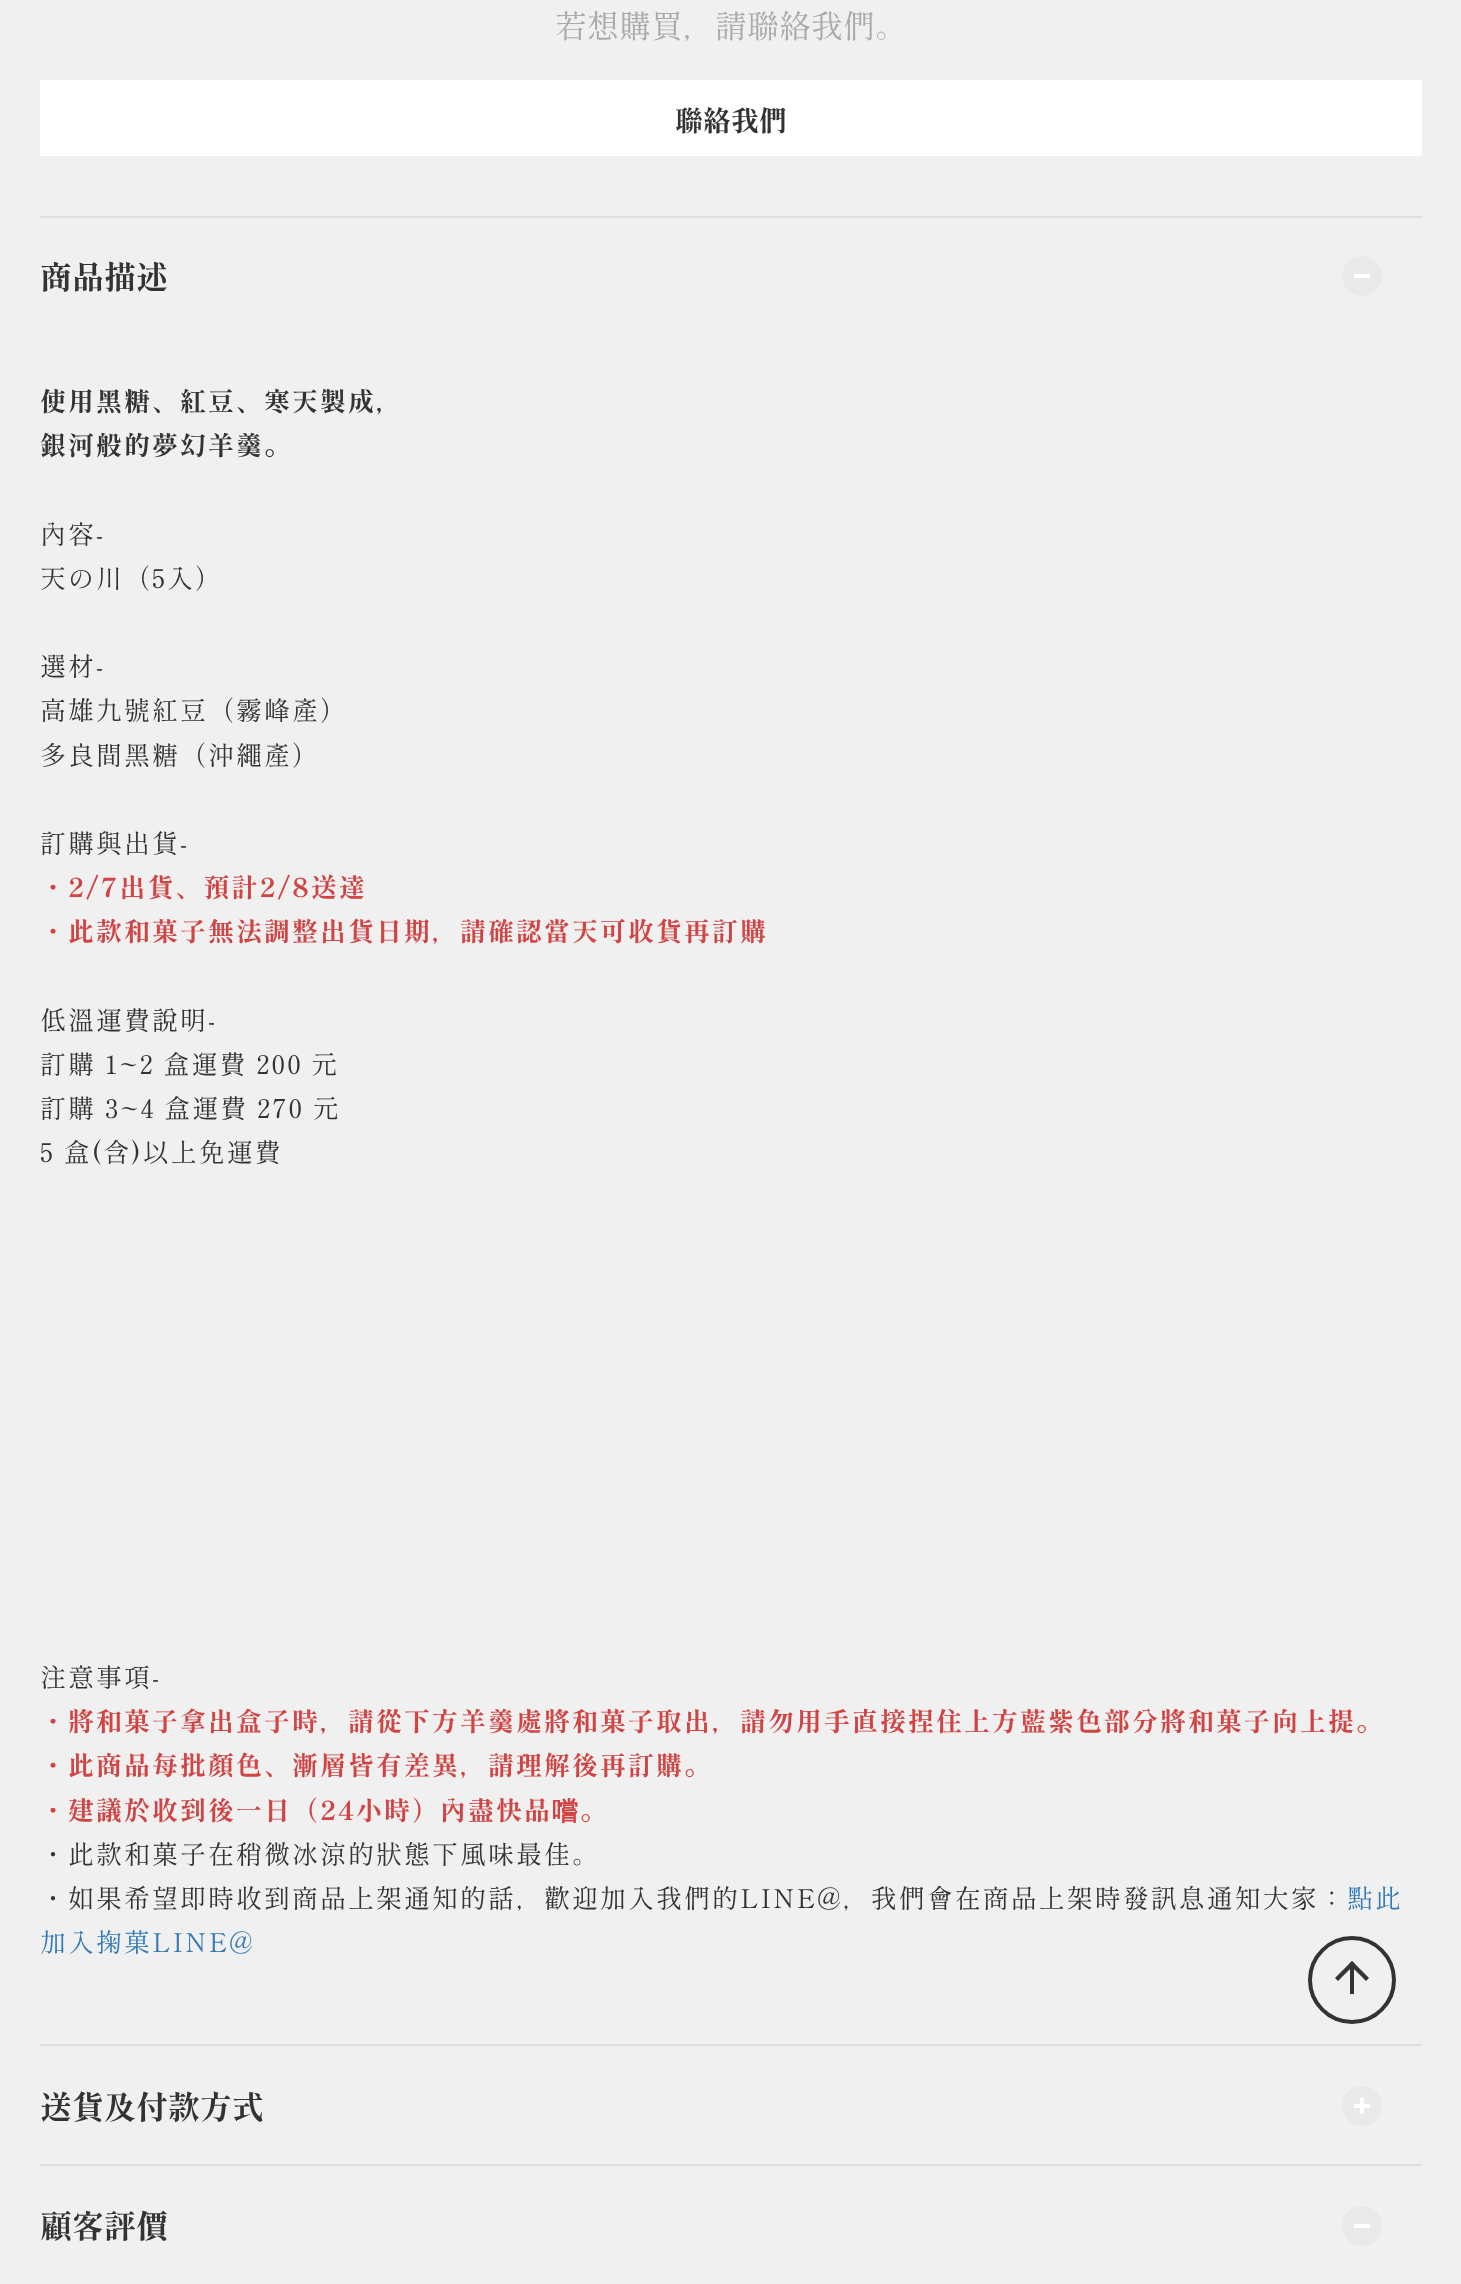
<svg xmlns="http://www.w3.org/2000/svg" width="1461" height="2284">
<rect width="100%" height="100%" fill="#f0f0f0"/>
<text x="555" y="38" style="font-family:Shippori Mincho;font-size:32px;fill:#aaa">若想購買，請聯絡我們。</text>
<rect x="40" y="80" width="1382" height="76" fill="#fff"/>
<text x="675" y="131" style="font-family:Shippori Mincho;font-size:28px;font-weight:bold;fill:#333">聯絡我們</text>
<rect x="40" y="216" width="1382" height="2" fill="#dedede"/>
<text x="40" y="289" style="font-family:Shippori Mincho;font-size:32px;font-weight:bold;fill:#333">商品描述</text>
<circle cx="1362" cy="276" r="20" fill="#e9e9e9"/>
<rect x="1354" y="274" width="16" height="4" fill="#fff"/>
<text x="40" y="411" style="font-family:Shippori Mincho;font-size:26px;font-weight:bold;letter-spacing:2px;fill:#333">使用黑糖、紅豆、寒天製成，</text>
<text x="40" y="455" style="font-family:Shippori Mincho;font-size:26px;font-weight:bold;letter-spacing:2px;fill:#333">銀河般的夢幻羊羹。</text>
<text x="40" y="544" style="font-family:Shippori Mincho;font-size:26px;letter-spacing:2px;fill:#333">內容-</text>
<text x="40" y="588" style="font-family:Shippori Mincho;font-size:26px;letter-spacing:2px;fill:#333">天の川（5入）</text>
<text x="40" y="676" style="font-family:Shippori Mincho;font-size:26px;letter-spacing:2px;fill:#333">選材-</text>
<text x="40" y="720" style="font-family:Shippori Mincho;font-size:26px;letter-spacing:2px;fill:#333">高雄九號紅豆（霧峰產）</text>
<text x="40" y="765" style="font-family:Shippori Mincho;font-size:26px;letter-spacing:2px;fill:#333">多良間黑糖（沖繩產）</text>
<text x="40" y="853" style="font-family:Shippori Mincho;font-size:26px;letter-spacing:2px;fill:#333">訂購與出貨-</text>
<text x="40" y="897" style="font-family:Shippori Mincho;font-size:26px;font-weight:bold;letter-spacing:2px;fill:#d04444">・2/7出貨、預計2/8送達</text>
<text x="40" y="941" style="font-family:Shippori Mincho;font-size:26px;font-weight:bold;letter-spacing:2px;fill:#d04444">・此款和菓子無法調整出貨日期，請確認當天可收貨再訂購</text>
<text x="40" y="1030" style="font-family:Shippori Mincho;font-size:26px;letter-spacing:2px;fill:#333">低溫運費說明-</text>
<text x="40" y="1074" style="font-family:Shippori Mincho;font-size:26px;letter-spacing:2px;fill:#333">訂購 1~2 盒運費 200 元</text>
<text x="40" y="1118" style="font-family:Shippori Mincho;font-size:26px;letter-spacing:2px;fill:#333">訂購 3~4 盒運費 270 元</text>
<text x="40" y="1162" style="font-family:Shippori Mincho;font-size:26px;letter-spacing:2px;fill:#333">5 盒(含)以上免運費</text>
<text x="40" y="1687" style="font-family:Shippori Mincho;font-size:26px;letter-spacing:2px;fill:#333">注意事項-</text>
<text x="40" y="1731" style="font-family:Shippori Mincho;font-size:26px;font-weight:bold;letter-spacing:2px;fill:#d04444">・將和菓子拿出盒子時，請從下方羊羹處將和菓子取出，請勿用手直接捏住上方藍紫色部分將和菓子向上提。</text>
<text x="40" y="1775" style="font-family:Shippori Mincho;font-size:26px;font-weight:bold;letter-spacing:2px;fill:#d04444">・此商品每批顏色、漸層皆有差異，請理解後再訂購。</text>
<text x="40" y="1820" style="font-family:Shippori Mincho;font-size:26px;font-weight:bold;letter-spacing:2px;fill:#d04444">・建議於收到後一日（24小時）內盡快品</text>
<text x="552" y="1820" style="font-family:WenQuanYi Zen Hei;font-size:26px;font-weight:bold;letter-spacing:2px;fill:#d04444">嚐</text>
<text x="580" y="1820" style="font-family:Shippori Mincho;font-size:26px;font-weight:bold;letter-spacing:2px;fill:#d04444">。</text>
<text x="40" y="1864" style="font-family:Shippori Mincho;font-size:26px;letter-spacing:2px;fill:#333">・此款和菓子在稍微冰涼的狀態下風味最佳。</text>
<text x="40" y="1908" style="font-family:Shippori Mincho;font-size:26px;letter-spacing:2px;fill:#333">・如果希望即時收到商品上架通知的話，歡迎加入我們的LINE@，我們會在商品上架時發訊息通知大家：</text>
<text x="1347" y="1908" style="font-family:Shippori Mincho;font-size:26px;letter-spacing:2px;fill:#337ab7">點此</text>
<text x="40" y="1952" style="font-family:Shippori Mincho;font-size:26px;letter-spacing:2px;fill:#337ab7">加入掬菓LINE@</text>
<rect x="40" y="2044" width="1382" height="2" fill="#dedede"/>
<text x="40" y="2119" style="font-family:Shippori Mincho;font-size:32px;font-weight:bold;fill:#333">送貨及付款方式</text>
<circle cx="1362" cy="2106" r="20" fill="#e9e9e9"/>
<rect x="1354" y="2104" width="16" height="4" fill="#fff"/>
<rect x="1360" y="2098" width="4" height="16" fill="#fff"/>
<rect x="40" y="2164" width="1382" height="2" fill="#dedede"/>
<text x="40" y="2238" style="font-family:Shippori Mincho;font-size:32px;font-weight:bold;fill:#333">顧客評價</text>
<circle cx="1362" cy="2226" r="20" fill="#e9e9e9"/>
<rect x="1354" y="2224" width="16" height="4" fill="#fff"/>
<circle cx="1352" cy="1980" r="42" fill="none" stroke="#333" stroke-width="4"/>
<path d="M1352 1961l17 17l-3 3l-17-17z" fill="#333"/>
<path d="M1352 1961l3 3l-17 17l-3-3z" fill="#333"/>
<rect x="1350" y="1966" width="4" height="28" fill="#333"/>
</svg>
